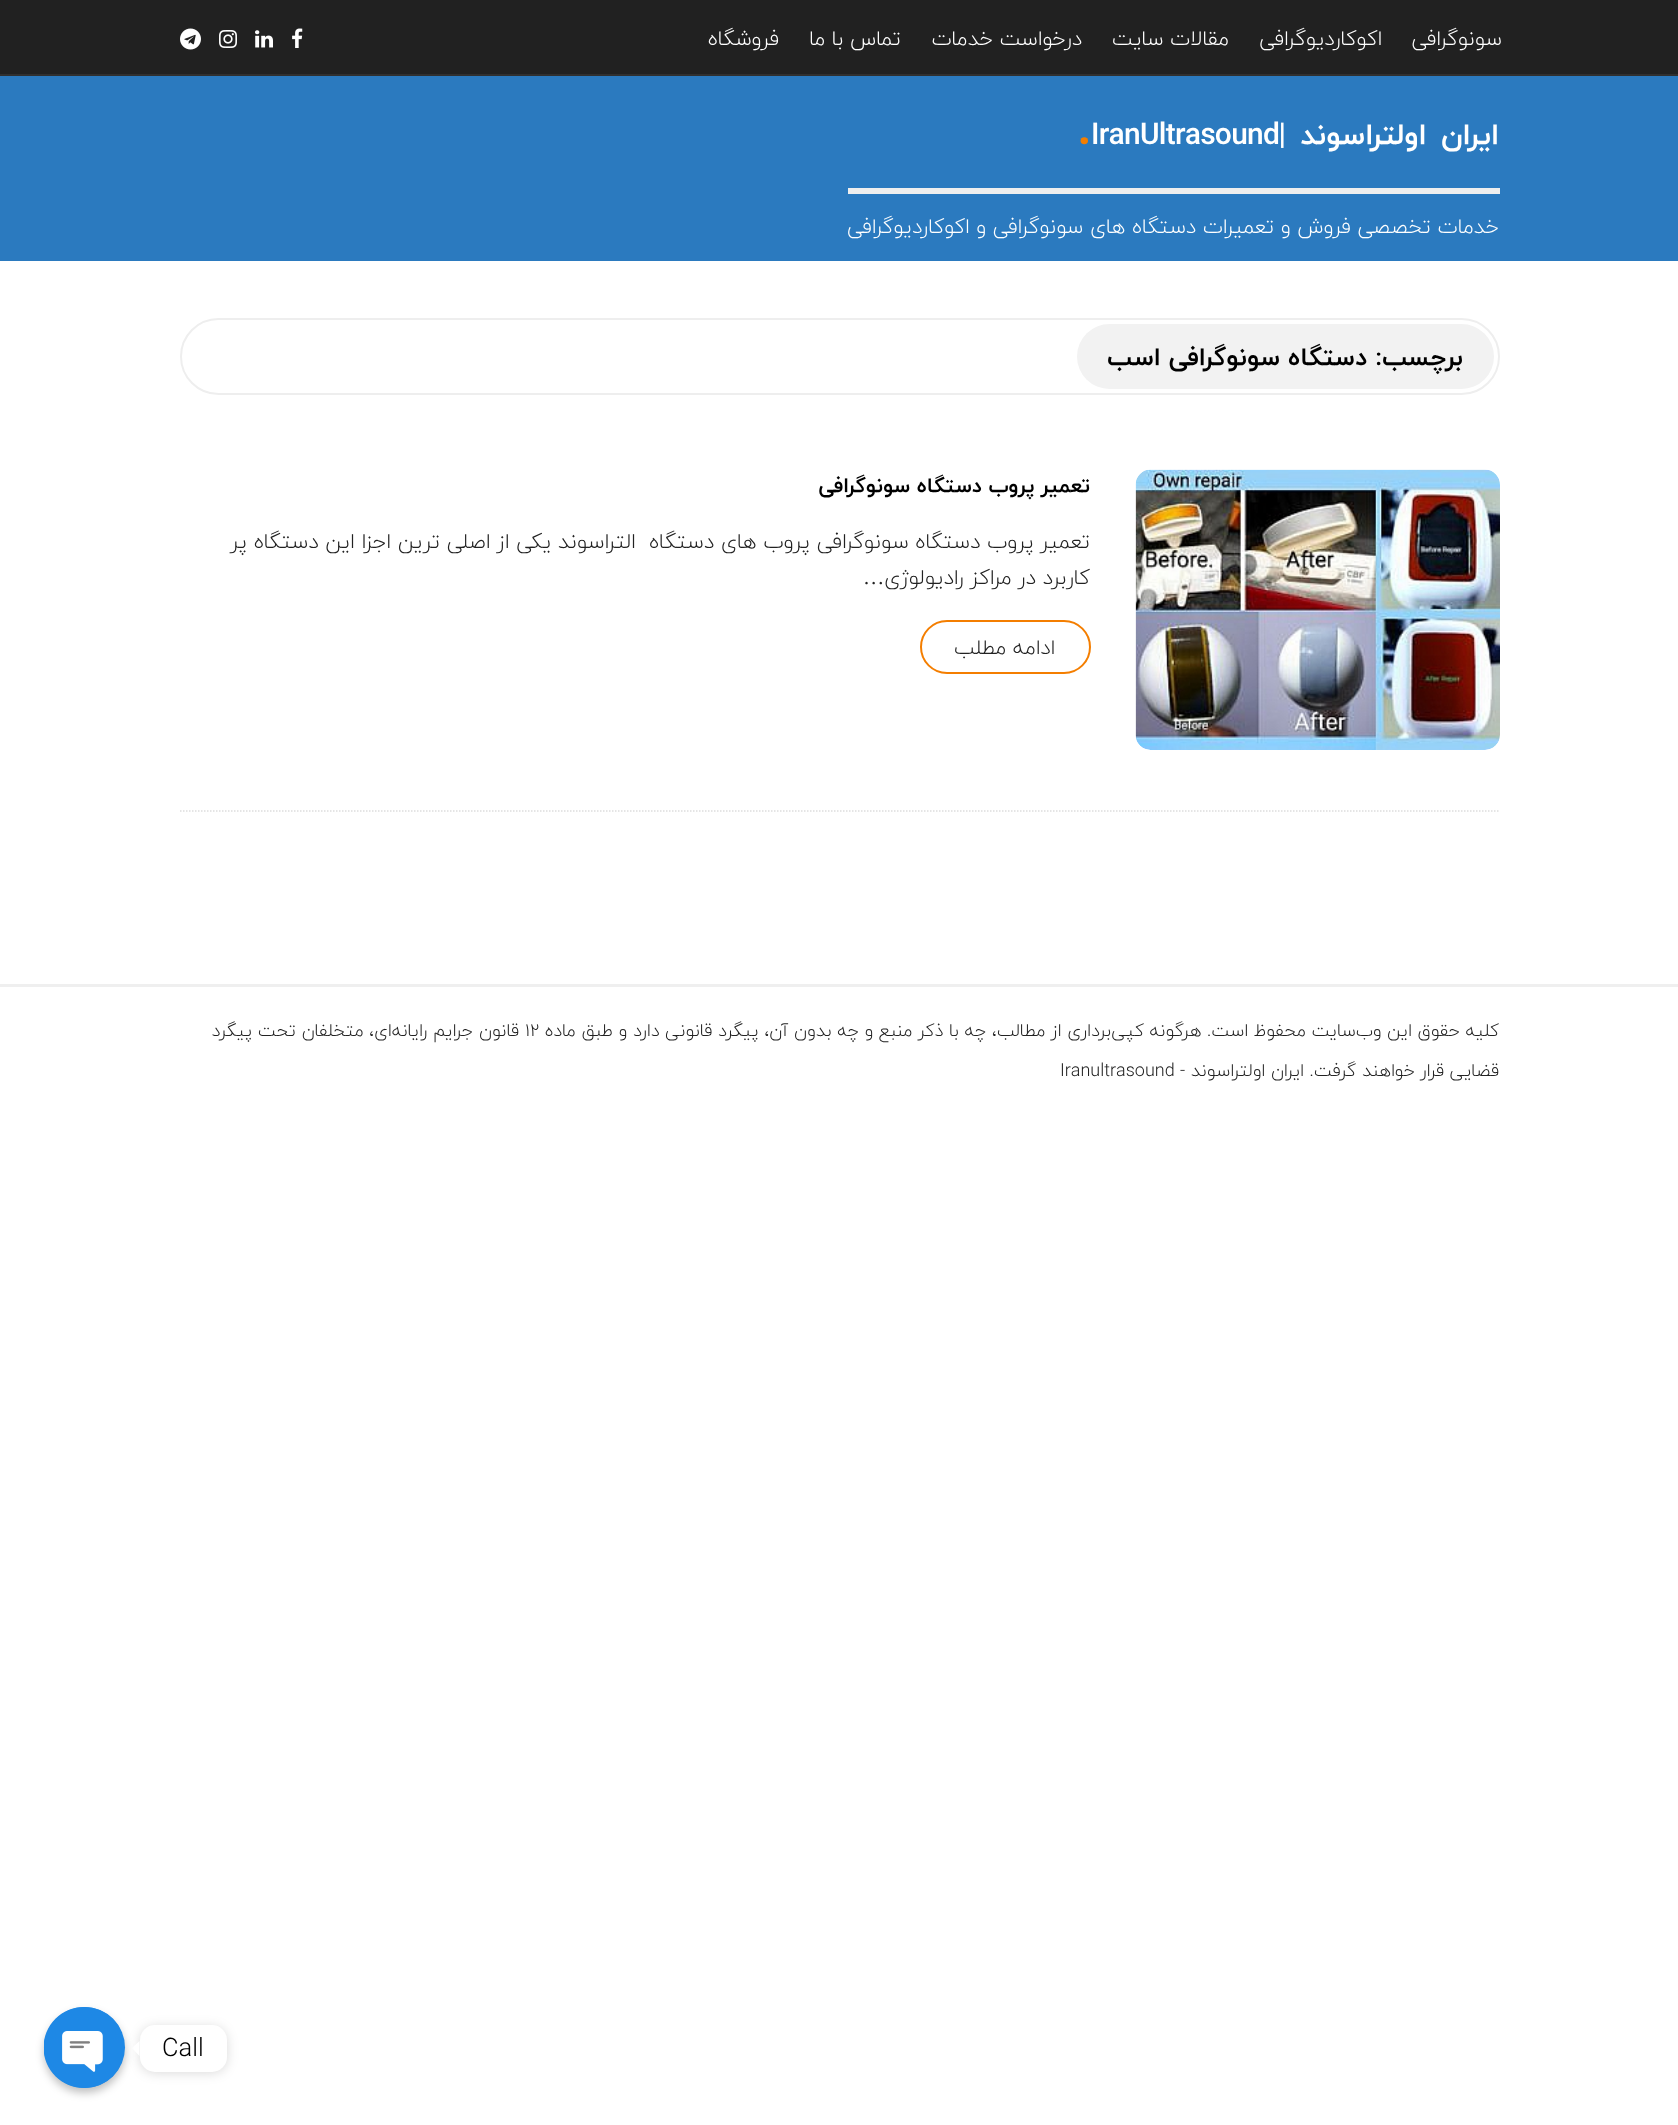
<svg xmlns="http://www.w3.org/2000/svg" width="1678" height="2125">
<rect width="100%" height="100%" fill="#fff"/>
<rect width="1678" height="74" fill="#212121"/>
<rect y="74" width="1678" height="2" fill="#303030"/>
<text x="1502" y="45" style="font-family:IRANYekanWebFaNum;font-size:21px;font-weight:300;direction:rtl;fill:#fff">سونوگرافی</text>
<text x="1382" y="45" style="font-family:IRANYekanWebFaNum;font-size:21px;font-weight:300;direction:rtl;fill:#fff">اکوکاردیوگرافی</text>
<text x="1229" y="45" style="font-family:IRANYekanWebFaNum;font-size:21px;font-weight:300;direction:rtl;fill:#fff">مقالات سایت</text>
<text x="1082" y="45" style="font-family:IRANYekanWebFaNum;font-size:21px;font-weight:300;direction:rtl;fill:#fff">درخواست خدمات</text>
<text x="901" y="45" style="font-family:IRANYekanWebFaNum;font-size:21px;font-weight:300;direction:rtl;fill:#fff">تماس با ما</text>
<text x="779" y="45" style="font-family:IRANYekanWebFaNum;font-size:21px;font-weight:300;direction:rtl;fill:#fff">فروشگاه</text>
<image x="292" y="28" width="11" height="20" href="media/1.png"/>
<image x="255" y="30" width="18" height="18" href="media/2.png"/>
<image x="219" y="30" width="18" height="18" href="media/3.png"/>
<image x="180" y="28" width="21" height="22" href="media/4.png"/>
<rect y="76" width="1678" height="185" fill="#2b7abf"/>
<text x="1499" y="144" word-spacing="5" style="font-family:IRANYekanWebFaNum;font-size:30px;font-weight:bold;letter-spacing:-0.75px;direction:rtl;fill:#fff">ایران اولتراسوند |</text>
<text x="1091" y="144" style="font-family:IRANYekanWebFaNum;font-size:30px;font-weight:bold;letter-spacing:-0.75px;fill:#fff">IranUltrasound</text>
<text x="1077" y="144" style="font-family:IRANYekanWebFaNum;font-size:54px;font-weight:bold;letter-spacing:-0.75px;fill:#f47e00">.</text>
<rect x="848" y="188" width="652" height="6" fill="#eee"/>
<text x="1499" y="233" style="font-family:IRANYekanWebFaNum;font-size:21px;font-weight:300;direction:rtl;fill:#fff">خدمات تخصصی فروش و تعمیرات دستگاه های سونوگرافی و اکوکاردیوگرافی</text>
<rect x="181" y="319" width="1318" height="75" rx="37.5" fill="none" stroke="#eee" stroke-width="2"/>
<rect x="1077" y="324" width="417" height="65" rx="32.5" fill="#f2f2f2"/>
<text x="1463" y="365" style="font-family:IRANYekanWebFaNum;font-size:25.5px;font-weight:bold;direction:rtl;fill:#000">برچسب:</text>
<text x="1367" y="365" style="font-family:IRANYekanWebFaNum;font-size:25.5px;font-weight:bold;direction:rtl;fill:#000">دستگاه سونوگرافی اسب</text>
<path d="M180 811h1320" fill="none" stroke="#ddd" stroke-width="1.5" stroke-dasharray="1.5 1.5"/>
<image x="1135" y="469" width="365" height="281" href="media/5.png"/>
<text x="1090" y="492" style="font-family:IRANYekanWebFaNum;font-size:21px;font-weight:bold;direction:rtl;fill:#000">تعمیر پروب دستگاه سونوگرافی</text>
<text x="1090" y="548" style="font-family:IRANYekanWebFaNum;font-size:21.3px;font-weight:300;direction:rtl;fill:#222" xml:space="preserve">تعمیر پروب دستگاه سونوگرافی پروب های دستگاه  التراسوند یکی از اصلی ترین اجزا این دستگاه پر</text>
<text x="1090" y="584" style="font-family:IRANYekanWebFaNum;font-size:21.3px;font-weight:300;direction:rtl;fill:#222">کاربرد در مراکز رادیولوژی</text>
<text x="863" y="584" style="font-family:Liberation Serif;font-size:21.3px;fill:#222">…</text>
<rect x="921" y="621" width="169" height="52" rx="26" fill="none" stroke="#f47e00" stroke-width="2"/>
<text x="1055" y="654" style="font-family:IRANYekanWebFaNum;font-size:21px;font-weight:300;direction:rtl;fill:#222">ادامه مطلب</text>
<rect y="984" width="1678" height="3" fill="#efefef"/>
<text x="1499" y="1036" style="font-family:IRANYekanWebFaNum;font-size:18px;font-weight:300;direction:rtl;fill:#222">کلیه حقوق این وب‌سایت محفوظ است. هرگونه کپی‌برداری از مطالب، چه با ذکر منبع و چه بدون آن، پیگرد قانونی دارد و طبق ماده</text>
<text x="525" y="1036" style="font-family:IRANYekanWebFaNum;font-size:18px;font-weight:300;fill:#222">۱۲</text>
<text x="519" y="1036" style="font-family:IRANYekanWebFaNum;font-size:18px;font-weight:300;direction:rtl;fill:#222">قانون جرایم رایانه‌ای، متخلفان تحت پیگرد</text>
<text x="1499" y="1076" style="font-family:IRANYekanWebFaNum;font-size:18px;font-weight:300;direction:rtl;fill:#222">قضایی قرار خواهند گرفت.</text>
<text x="1304" y="1076" style="font-family:IRANYekanWebFaNum;font-size:18px;font-weight:300;direction:rtl;fill:#222">ایران اولتراسوند -</text>
<text x="1060" y="1076" style="font-family:IRANYekanWebFaNum;font-size:18px;font-weight:300;fill:#222">Iranultrasound</text>
<rect x="140" y="2027" width="87" height="46" rx="15" fill="#00000026" filter="blur(6px)"/>
<rect x="140" y="2025" width="87" height="47" rx="15" fill="#fff"/>
<text x="162" y="2056" style="font-family:IRANYekanWebFaNum;font-size:25.5px;font-weight:300;fill:#000">Call</text>
<path d="M139.5 2041v15l-7.5-8z" fill="#fff"/>
<rect x="44" y="2012" width="81" height="81" rx="40.5" fill="#00000040" filter="blur(4.5px)"/>
<circle cx="84.5" cy="2047.5" r="40.5" fill="#1e88e5"/>
<image x="44" y="2007" width="76" height="81" href="media/6.png"/>
</svg>
